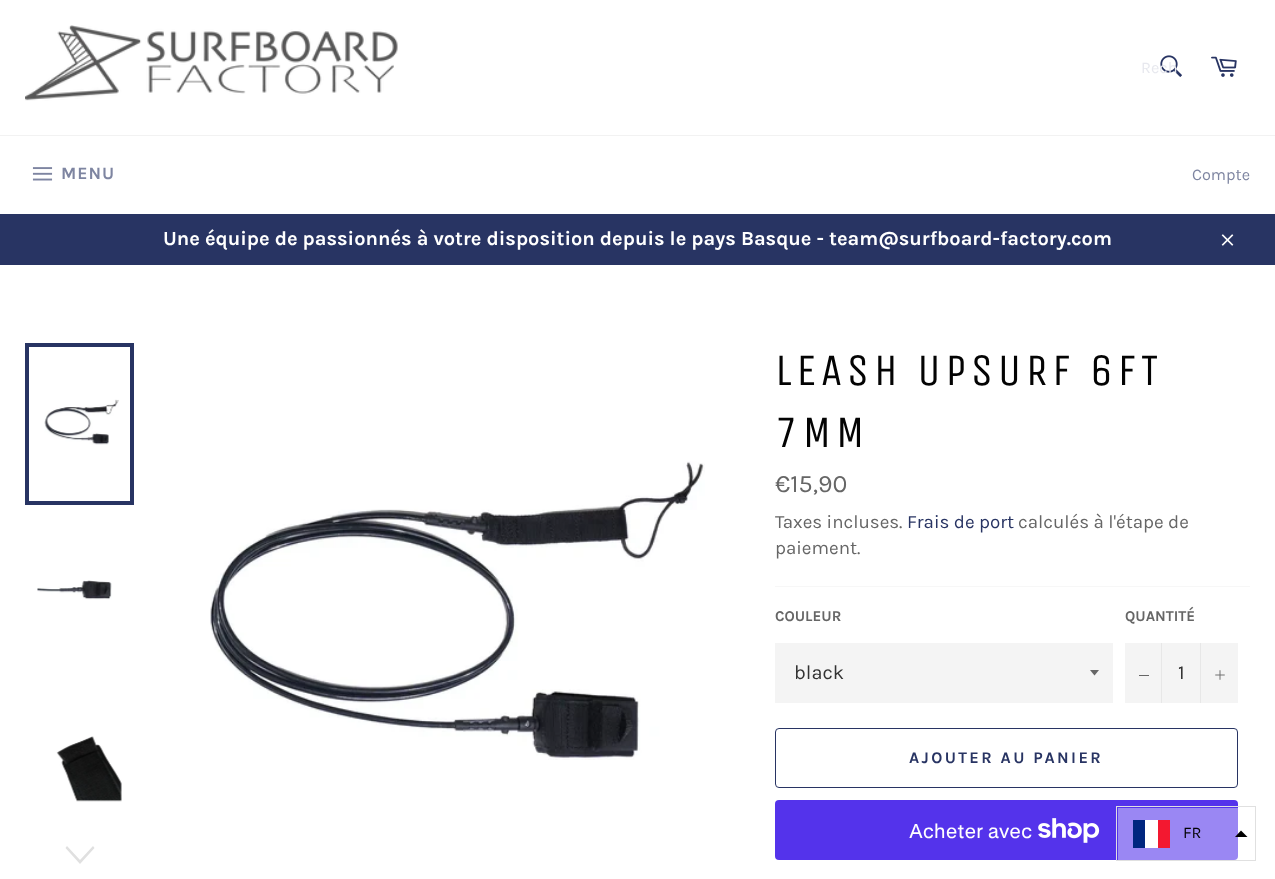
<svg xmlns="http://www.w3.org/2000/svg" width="1275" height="879">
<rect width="100%" height="100%" fill="#fff"/>
<image x="25" y="25" width="373" height="76" href="media/1.png"/>
<image x="1160" y="55" width="22" height="22" href="media/2.png"/>
<text x="1141" y="73" style="font-family:Karla;font-size:16.25px;fill:#e7e8ee">Rech</text>
<image x="1211" y="56" width="26" height="21" href="media/3.png"/>
<rect y="135" width="1275" height="1" fill="#f2f2f2"/>
<image x="32" y="167" width="21" height="14" href="media/4.png"/>
<text x="61" y="179" style="font-family:Karla;font-size:17.5px;font-weight:bold;letter-spacing:1px;fill:#7e85a1">MENU</text>
<text x="1192" y="180" style="font-family:Karla;font-size:16.25px;fill:#7e85a1">Compte</text>
<rect y="214" width="1275" height="51" fill="#283463"/>
<text x="163" y="245" style="font-family:Karla;font-size:20px;font-weight:bold;fill:#fff">Une équipe de passionnés à votre disposition depuis le pays Basque - team@surfboard-factory.com</text>
<image x="1221" y="234" width="13" height="12" href="media/5.png"/>
<image x="44" y="399" width="75" height="46" href="media/6.png"/>
<rect x="27" y="345" width="105" height="158" fill="none" stroke="#283463" stroke-width="4"/>
<image x="37" y="580" width="75" height="20" href="media/7.png"/>
<image x="56" y="736" width="66" height="66" href="media/8.png"/>
<path d="M93 846l1.5 2l-14.5 16l-14.5-16l1.5-2l13 14z" fill="#e0e0e0"/>
<image x="210" y="461" width="495" height="299" href="media/9.png"/>
<text x="775" y="385" style="font-family:Unica One;font-size:45px;letter-spacing:4.5px;fill:#030303">LEASH UPSURF 6FT</text>
<text x="775" y="447" style="font-family:Unica One;font-size:45px;letter-spacing:4.5px;fill:#030303">7MM</text>
<text x="775" y="492" style="font-family:Karla;font-size:25px;fill:#666">€15,90</text>
<text x="775" y="528" style="font-family:Karla;font-size:18.75px;fill:#666">Taxes incluses.</text>
<text x="907" y="528" style="font-family:Karla;font-size:18.75px;fill:#283463">Frais de port</text>
<text x="1018" y="528" style="font-family:Karla;font-size:18.75px;fill:#666">calculés à l'étape de</text>
<text x="775" y="554" style="font-family:Karla;font-size:18.75px;fill:#666">paiement.</text>
<rect x="775" y="586" width="475" height="1" fill="#f7f7f7"/>
<text x="775" y="621" style="font-family:Karla;font-size:15px;font-weight:bold;fill:#666">COULEUR</text>
<rect x="775" y="643" width="338" height="60" fill="#f4f4f4"/>
<path d="M1090 670l4.5 5.5l4.5-5.5z" fill="#666"/>
<text x="794" y="679" style="font-family:Karla;font-size:20px;fill:#333">black</text>
<text x="1125" y="621" style="font-family:Karla;font-size:15px;font-weight:bold;fill:#666">QUANTITÉ</text>
<rect x="1125" y="643" width="113" height="60" fill="#f4f4f4"/>
<rect x="1161" y="643" width="1" height="60" fill="#e7e7e7"/>
<rect x="1139" y="675" width="10" height="1" fill="#666"/>
<text x="1178" y="679" style="font-family:Karla;font-size:20px;fill:#333">1</text>
<rect x="1200" y="643" width="1" height="60" fill="#e7e7e7"/>
<image x="1215" y="670" width="10" height="10" href="media/10.png"/>
<rect x="775.5" y="728.5" width="462" height="59" rx="3.5" fill="none" stroke="#283463"/>
<text x="909" y="763" style="font-family:Karla;font-size:16.25px;font-weight:bold;letter-spacing:2.4px;fill:#283463">AJOUTER AU PANIER</text>
<rect x="775" y="800" width="463" height="60" rx="4" fill="#5433eb"/>
<text x="909" y="838" style="font-family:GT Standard;font-size:20px;fill:#fff">Acheter avec</text>
<image x="1038" y="818" width="62" height="25" href="media/11.png"/>
<rect x="1116.5" y="806.5" width="139" height="54" fill="none" stroke="#e0e0e0"/>
<rect x="1118" y="808" width="120" height="52" fill="#ffffff69"/>
<rect x="1145" y="820" width="13" height="28" fill="#fff"/>
<rect x="1133" y="820" width="12" height="28" fill="#00267f"/>
<rect x="1158" y="820" width="12" height="28" fill="#f31830"/>
<text x="1183" y="838" style="font-family:Karla;font-size:16.25px;fill:#030303">FR</text>
<path d="M1235 837l6-6.5l6.5 6.5z" fill="#000" fill-rule="evenodd"/>
</svg>
